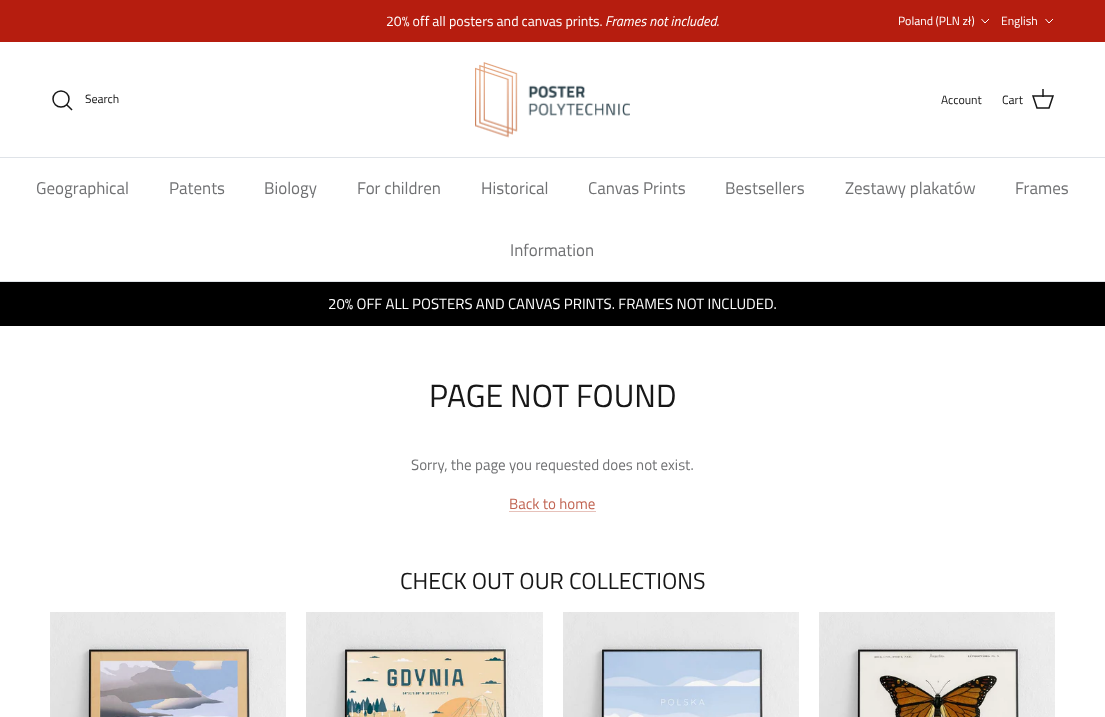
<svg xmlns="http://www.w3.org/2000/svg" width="1105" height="717">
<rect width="100%" height="100%" fill="#fff"/>
<rect width="1105" height="42" fill="#b61d0f"/>
<text x="386" y="26" style="font-family:Titillium Web;font-size:14px;fill:#fff">20% off all posters and canvas prints.</text>
<text x="605" y="26" style="font-family:Titillium Web;font-size:14px;font-style:italic;fill:#fff">Frames not included.</text>
<text x="898" y="25" style="font-family:Titillium Web;font-size:12px;fill:#fff">Poland (PLN zł)</text>
<path d="M989 19l-4 4l-3.5-4" fill="none" stroke="#fff"/>
<text x="1001" y="25" style="font-family:Titillium Web;font-size:12px;fill:#fff">English</text>
<path d="M1053 19l-4 4l-3.5-4" fill="none" stroke="#fff"/>
<rect y="157" width="1105" height="1" fill="#dfe3e8"/>
<circle cx="61" cy="99" r="8" fill="none" stroke="#171717" stroke-width="1.5"/>
<text x="85" y="103" style="font-family:Titillium Web;font-size:12px;fill:#171717">Search</text>
<path d="M67 105l4.5 4.5" fill="none" stroke="#171717" stroke-width="1.5" stroke-linecap="square"/>
<image x="475" y="62" width="155" height="76" href="media/1.png"/>
<text x="941" y="104" style="font-family:Titillium Web;font-size:12px;fill:#171717">Account</text>
<text x="1002" y="104" style="font-family:Titillium Web;font-size:12px;fill:#171717">Cart</text>
<path d="M1033 96h20l-4 12h-12z" fill="none" stroke="#171717" stroke-width="1.5"/>
<rect x="1042" y="89" width="2" height="8" fill="#171717bf"/>
<rect y="281" width="1105" height="1" fill="#dfe3e8"/>
<text x="36" y="194" style="font-family:Titillium Web;font-size:17px;fill:#707173">Geographical</text>
<text x="169" y="194" style="font-family:Titillium Web;font-size:17px;fill:#707173">Patents</text>
<text x="264" y="194" style="font-family:Titillium Web;font-size:17px;fill:#707173">Biology</text>
<text x="357" y="194" style="font-family:Titillium Web;font-size:17px;fill:#707173">For children</text>
<text x="481" y="194" style="font-family:Titillium Web;font-size:17px;fill:#707173">Historical</text>
<text x="588" y="194" style="font-family:Titillium Web;font-size:17px;fill:#707173">Canvas Prints</text>
<text x="725" y="194" style="font-family:Titillium Web;font-size:17px;fill:#707173">Bestsellers</text>
<text x="845" y="194" style="font-family:Titillium Web;font-size:17px;fill:#707173">Zestawy plakatów</text>
<text x="1015" y="194" style="font-family:Titillium Web;font-size:17px;fill:#707173">Frames</text>
<text x="510" y="256" style="font-family:Titillium Web;font-size:17px;fill:#707173">Information</text>
<rect y="282" width="1105" height="44" fill="#000"/>
<text x="328" y="309" style="font-family:Titillium Web;font-size:15px;fill:#fff">20% OFF ALL POSTERS AND CANVAS PRINTS. FRAMES NOT INCLUDED.</text>
<text x="429" y="407" style="font-family:Titillium Web;font-size:32px;fill:#171717">PAGE NOT FOUND</text>
<text x="411" y="470" style="font-family:Titillium Web;font-size:15px;fill:#707173">Sorry, the page you requested does not exist.</text>
<text x="509" y="509" style="font-family:Titillium Web;font-size:15px;fill:#c16452">Back to home</text>
<rect x="509" y="511" width="87" height="1" fill="#e6c1ba"/>
<text x="400" y="589" style="font-family:Titillium Web;font-size:23.2px;fill:#171717">CHECK OUT OUR COLLECTIONS</text>
<image x="50" y="612" width="236" height="105" href="media/2.png"/>
<image x="306" y="612" width="237" height="105" href="media/3.png"/>
<image x="563" y="612" width="236" height="105" href="media/4.png"/>
<image x="819" y="612" width="236" height="105" href="media/5.png"/>
</svg>
